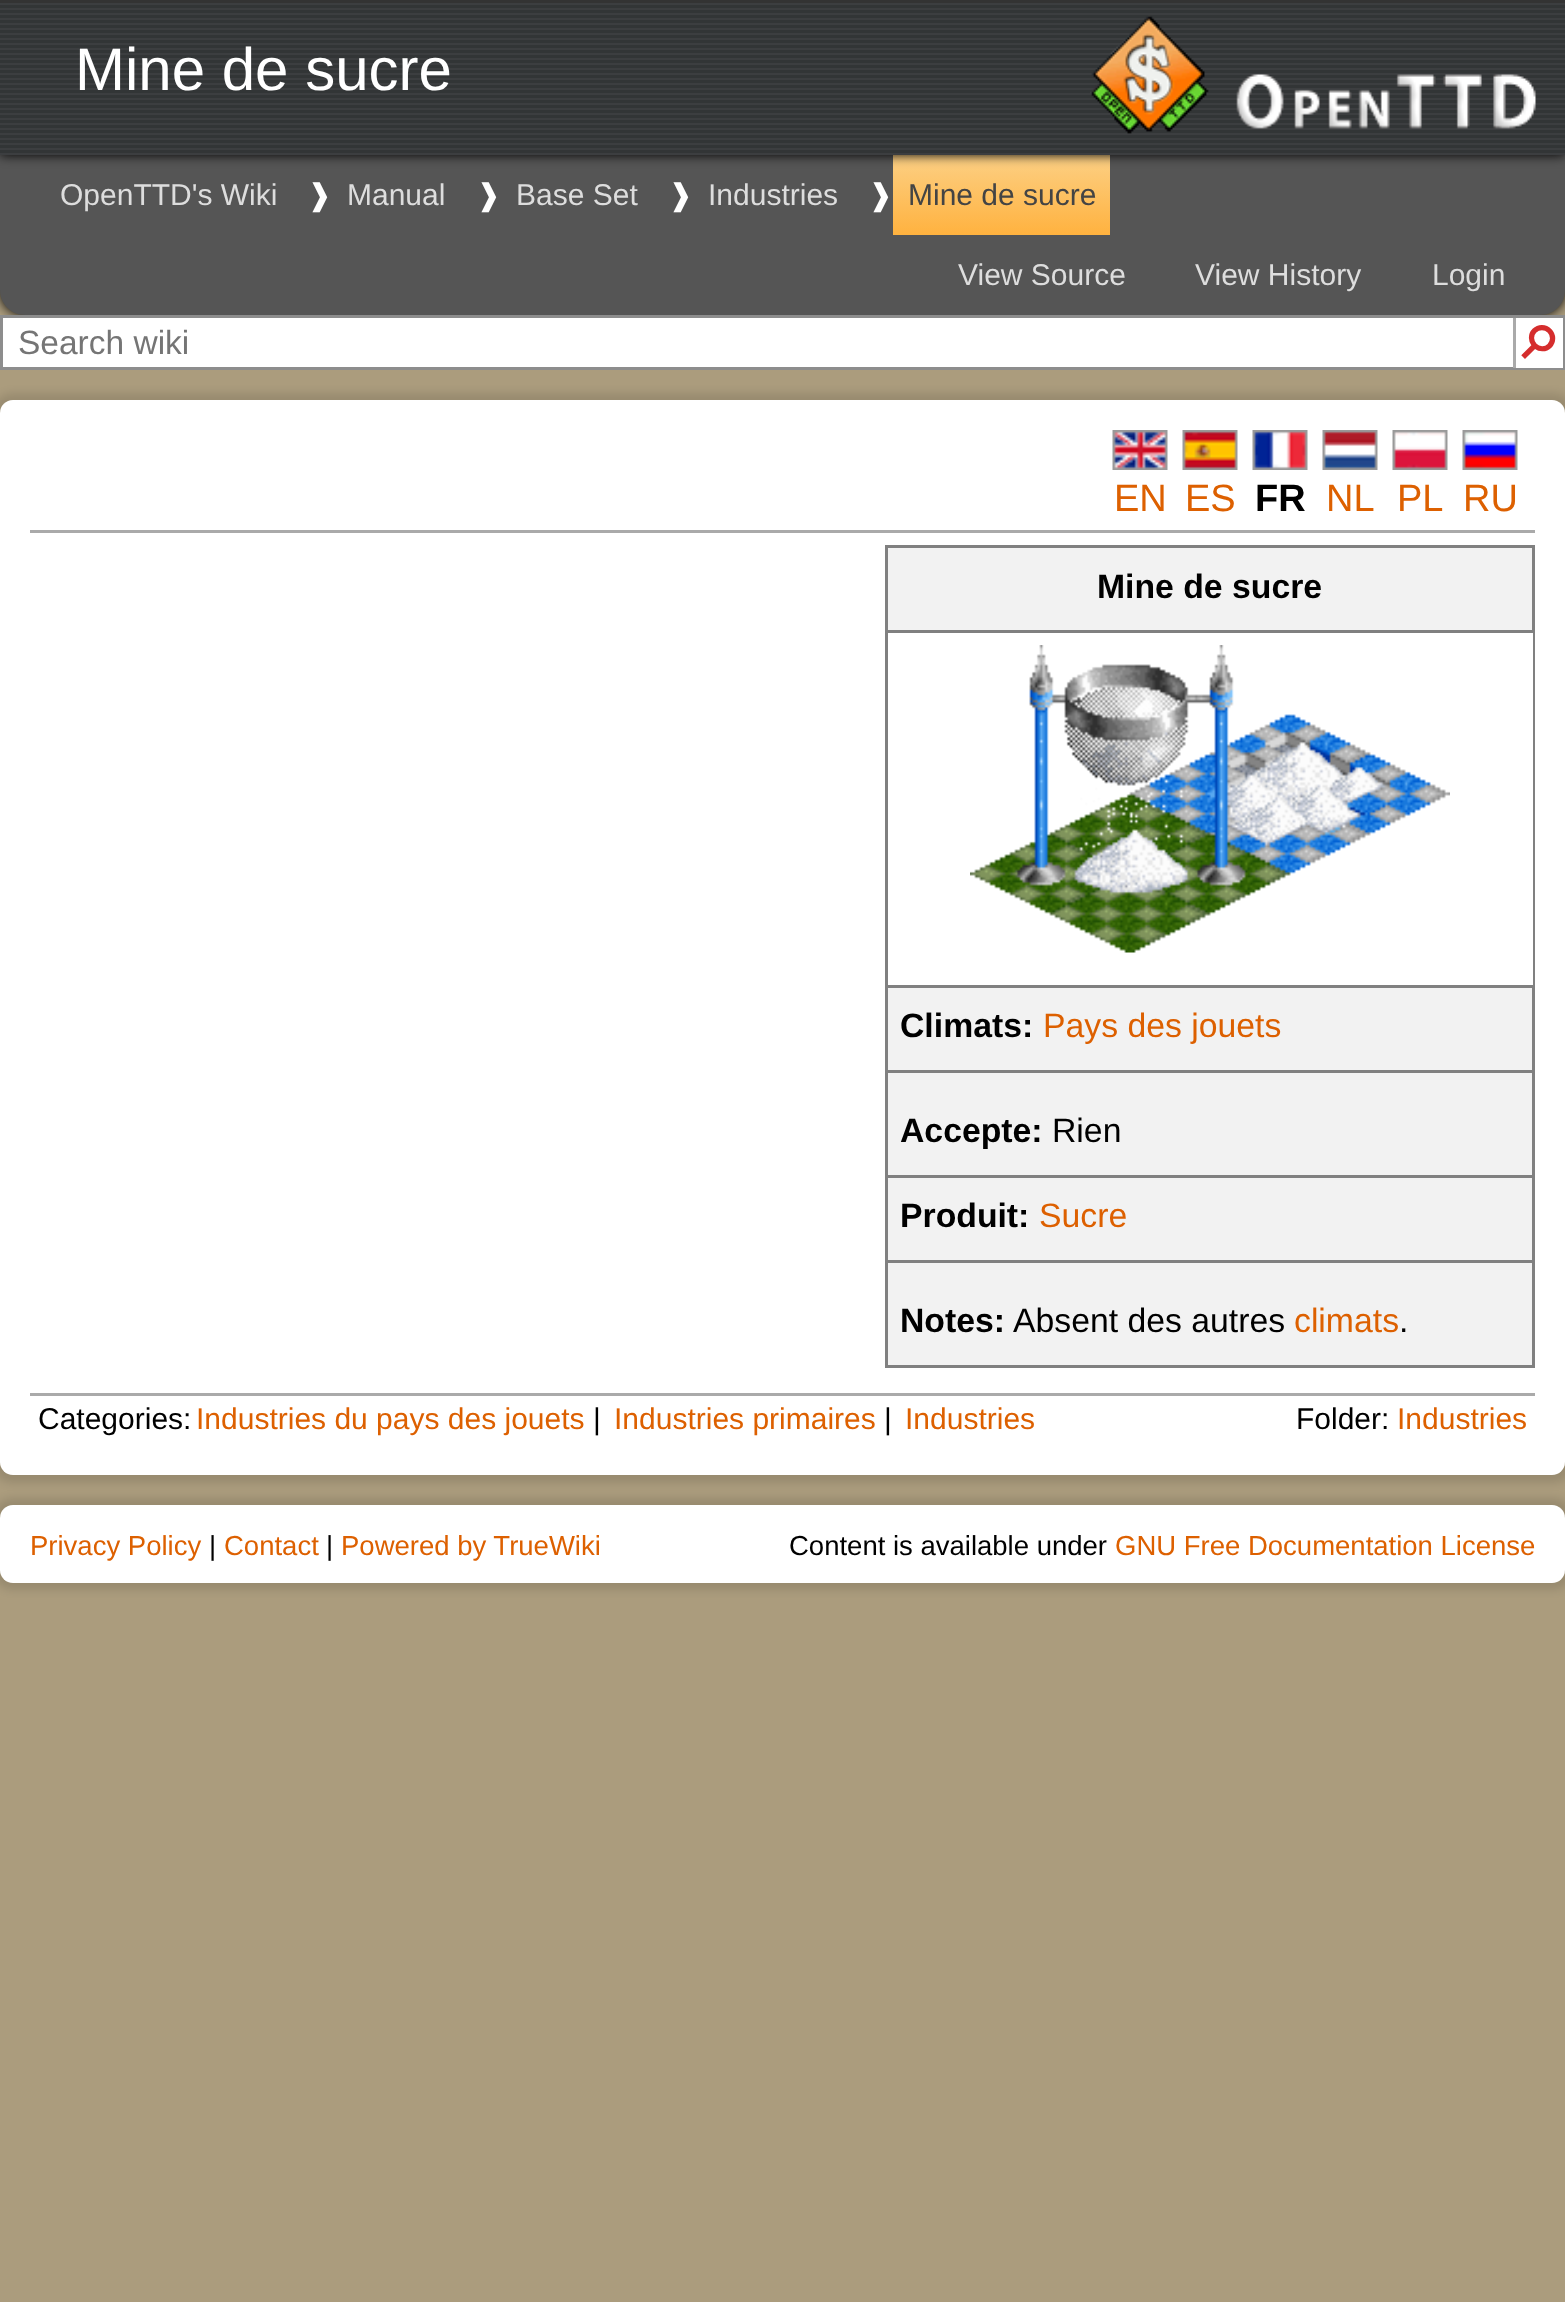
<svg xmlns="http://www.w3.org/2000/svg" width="1565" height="2302">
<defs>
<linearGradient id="g1" gradientUnits="userSpaceOnUse" x1="1001" y1="155" x2="1001" y2="235"><stop offset="0" stop-color="#fcd085"/><stop offset="1" stop-color="#ffb23f"/></linearGradient>
</defs>
<rect width="100%" height="100%" fill="#ab9c7d"/>
<rect y="155" width="1565" height="160" rx="25" fill="#000" filter="blur(6px)"/>
<path d="M0 155h1565v135c0 14-11 25-25 25h-1515c-14 0-25-11-25-25z" fill="#555"/>
<rect x="893" y="155" width="217" height="80" fill="url(#g1)"/>
<rect width="1565" height="155" fill="#000" filter="blur(6px)"/>
<rect width="1565" height="3" fill="#333"/>
<image x="0" y="3" width="1565" height="152" href="media/1.png"/>
<text x="75" y="90" style="font-family:Liberation Sans;font-size:60px;fill:#fff">Mine de sucre</text>
<image x="1090" y="15" width="119" height="119" href="media/2.png"/>
<image x="1236" y="74" width="300" height="55" href="media/3.png"/>
<text x="60" y="205" style="font-family:Liberation Sans;font-size:30px;fill:#ddd">OpenTTD's Wiki</text>
<text x="307" y="205" style="font-family:DejaVu Sans;font-size:30px;fill:#fff">❱</text>
<text x="347" y="205" style="font-family:Liberation Sans;font-size:30px;fill:#ddd">Manual</text>
<text x="476" y="205" style="font-family:DejaVu Sans;font-size:30px;fill:#fff">❱</text>
<text x="516" y="205" style="font-family:Liberation Sans;font-size:30px;fill:#ddd">Base Set</text>
<text x="668" y="205" style="font-family:DejaVu Sans;font-size:30px;fill:#fff">❱</text>
<text x="708" y="205" style="font-family:Liberation Sans;font-size:30px;fill:#ddd">Industries</text>
<text x="868" y="205" style="font-family:DejaVu Sans;font-size:30px;fill:#fff">❱</text>
<text x="908" y="205" style="font-family:Liberation Sans;font-size:30px;fill:#444">Mine de sucre</text>
<text x="958" y="285" style="font-family:Liberation Sans;font-size:30px;fill:#ddd">View Source</text>
<text x="1195" y="285" style="font-family:Liberation Sans;font-size:30px;fill:#ddd">View History</text>
<text x="1432" y="285" style="font-family:Liberation Sans;font-size:30px;fill:#ddd">Login</text>
<rect x="3" y="318" width="1510" height="49" fill="#fff"/>
<rect x="1.5" y="316.5" width="1562" height="52" fill="none" stroke="#8d8d8d" stroke-width="3"/>
<text x="18" y="354" style="font-family:Liberation Sans;font-size:33.5px;fill:#757575">Search wiki</text>
<rect x="1516" y="318" width="47" height="50" fill="#fff"/>
<rect x="1513" y="318" width="3" height="50" fill="#aaa"/>
<text x="1515" y="341" transform="rotate(45 1515 341)" style="font-family:DejaVu Sans;font-size:45px;font-weight:bold;fill:#d52d2d">⚲</text>
<rect x="-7" y="393" width="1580" height="1090" rx="20" fill="#0000001c" filter="blur(4px)"/>
<rect y="400" width="1565" height="1075" rx="13" fill="#fff"/>
<rect x="30" y="530" width="1505" height="3" fill="#aaa"/>
<image x="1112" y="430" width="56" height="40" href="media/4.png"/>
<text x="1114" y="511" style="font-family:Liberation Sans;font-size:38px;fill:#dd6000">EN</text>
<image x="1182" y="430" width="56" height="40" href="media/5.png"/>
<text x="1185" y="511" style="font-family:Liberation Sans;font-size:38px;fill:#dd6000">ES</text>
<image x="1252" y="430" width="56" height="40" href="media/6.png"/>
<text x="1255" y="511" style="font-family:Liberation Sans;font-size:38px;font-weight:bold;fill:#000">FR</text>
<image x="1322" y="430" width="56" height="40" href="media/7.png"/>
<text x="1326" y="511" style="font-family:Liberation Sans;font-size:38px;fill:#dd6000">NL</text>
<image x="1392" y="430" width="56" height="40" href="media/8.png"/>
<text x="1397" y="511" style="font-family:Liberation Sans;font-size:38px;fill:#dd6000">PL</text>
<image x="1462" y="430" width="56" height="40" href="media/9.png"/>
<text x="1463" y="511" style="font-family:Liberation Sans;font-size:38px;fill:#dd6000">RU</text>
<rect x="886.5" y="546.5" width="647" height="820" fill="#f2f2f2" stroke="#808080" stroke-width="3"/>
<rect x="888" y="630" width="645" height="3" fill="#808080"/>
<text x="1097" y="598" style="font-family:Liberation Sans;font-size:33.75px;font-weight:bold;fill:#000">Mine de sucre</text>
<rect x="888" y="633" width="645" height="352" fill="#fff"/>
<image x="970" y="645" width="480" height="308" href="media/10.png"/>
<rect x="888" y="985" width="645" height="3" fill="#808080"/>
<text x="900" y="1037" style="font-family:Liberation Sans;font-size:33.75px;font-weight:bold;fill:#000">Climats:</text>
<text x="1043" y="1037" style="font-family:Liberation Sans;font-size:33.75px;fill:#dd6000">Pays des jouets</text>
<rect x="888" y="1070" width="645" height="3" fill="#808080"/>
<text x="900" y="1142" style="font-family:Liberation Sans;font-size:33.75px;font-weight:bold;fill:#000">Accepte:</text>
<text x="1052" y="1142" style="font-family:Liberation Sans;font-size:33.75px;fill:#000">Rien</text>
<rect x="888" y="1175" width="645" height="3" fill="#808080"/>
<text x="900" y="1227" style="font-family:Liberation Sans;font-size:33.75px;font-weight:bold;fill:#000">Produit:</text>
<text x="1039" y="1227" style="font-family:Liberation Sans;font-size:33.75px;fill:#dd6000">Sucre</text>
<rect x="888" y="1260" width="645" height="3" fill="#808080"/>
<text x="900" y="1332" style="font-family:Liberation Sans;font-size:33.75px;font-weight:bold;fill:#000">Notes:</text>
<text x="1013" y="1332" style="font-family:Liberation Sans;font-size:33.75px;fill:#000">Absent des autres</text>
<text x="1294" y="1332" style="font-family:Liberation Sans;font-size:33.75px;fill:#dd6000">climats</text>
<text x="1399" y="1332" style="font-family:Liberation Sans;font-size:33.75px;fill:#000">.</text>
<rect x="30" y="1393" width="1505" height="3" fill="#aaa"/>
<text x="38" y="1429" style="font-family:Liberation Sans;font-size:30px;fill:#000">Categories:</text>
<text x="196" y="1429" style="font-family:Liberation Sans;font-size:30px;fill:#dd6000">Industries du pays des jouets</text>
<text x="593" y="1429" style="font-family:Liberation Sans;font-size:30px;fill:#000">|</text>
<text x="614" y="1429" style="font-family:Liberation Sans;font-size:30px;fill:#dd6000">Industries primaires</text>
<text x="884" y="1429" style="font-family:Liberation Sans;font-size:30px;fill:#000">|</text>
<text x="905" y="1429" style="font-family:Liberation Sans;font-size:30px;fill:#dd6000">Industries</text>
<text x="1296" y="1429" style="font-family:Liberation Sans;font-size:30px;fill:#000">Folder:</text>
<text x="1397" y="1429" style="font-family:Liberation Sans;font-size:30px;fill:#dd6000">Industries</text>
<rect x="-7" y="1498" width="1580" height="92" rx="20" fill="#0000001c" filter="blur(4px)"/>
<rect y="1505" width="1565" height="78" rx="13" fill="#fff"/>
<text x="30" y="1555" style="font-family:Liberation Sans;font-size:27.5px;fill:#dd6000">Privacy Policy</text>
<text x="209" y="1555" style="font-family:Liberation Sans;font-size:27.5px;fill:#000">|</text>
<text x="224" y="1555" style="font-family:Liberation Sans;font-size:27.5px;fill:#dd6000">Contact</text>
<text x="326" y="1555" style="font-family:Liberation Sans;font-size:27.5px;fill:#000">|</text>
<text x="341" y="1555" style="font-family:Liberation Sans;font-size:27.5px;fill:#dd6000">Powered by TrueWiki</text>
<text x="789" y="1555" style="font-family:Liberation Sans;font-size:27.5px;fill:#000">Content is available under</text>
<text x="1115" y="1555" style="font-family:Liberation Sans;font-size:27.5px;fill:#dd6000">GNU Free Documentation License</text>
</svg>
